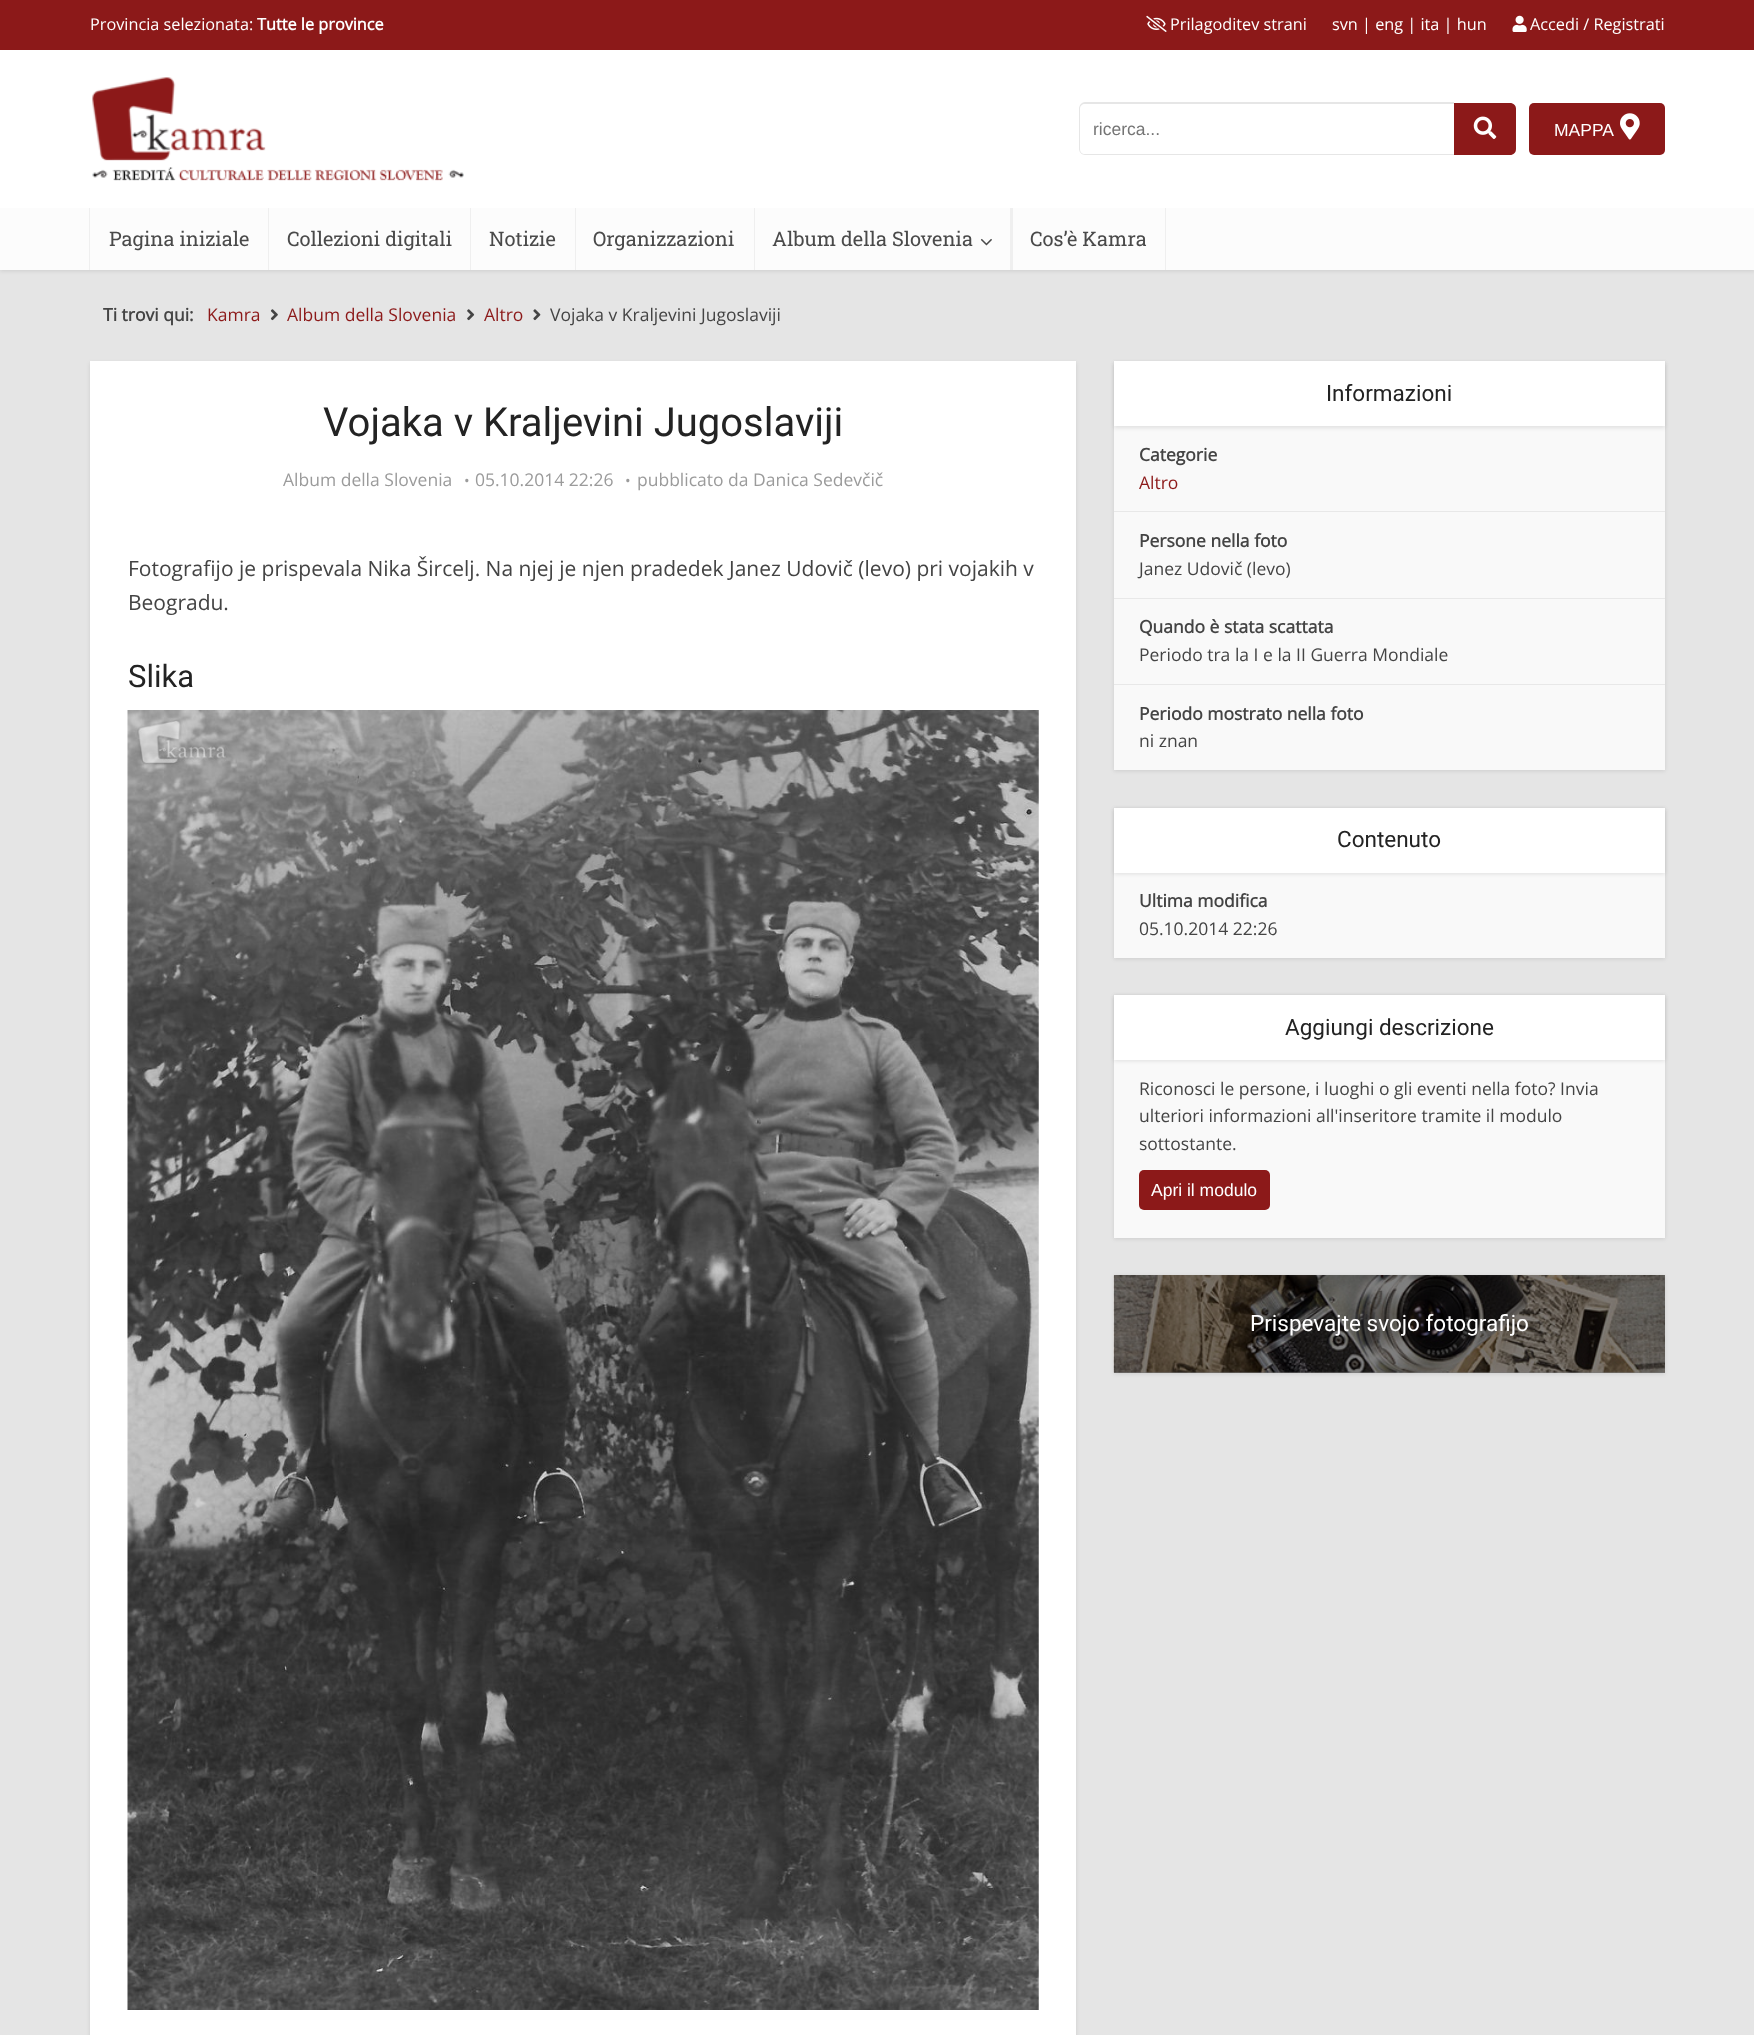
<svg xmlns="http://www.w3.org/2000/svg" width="1754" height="2035">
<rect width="100%" height="100%" fill="#e5e5e5"/>
<rect y="1" width="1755" height="270" fill="#0000001a" filter="blur(2px)"/>
<rect y="50" width="1754" height="158" fill="#fff"/>
<rect width="1754" height="50" fill="#8c1919"/>
<text x="90" y="30" style="font-family:Open Sans;font-size:16.25px;fill:#fff">Provincia selezionata:</text>
<text x="257" y="30" style="font-family:Open Sans;font-size:16.25px;font-weight:bold;fill:#fff">Tutte le province</text>
<image x="1146" y="15" width="21" height="17" href="media/1.png"/>
<text x="1170" y="30" style="font-family:Open Sans;font-size:16.25px;fill:#fff">Prilagoditev strani</text>
<text x="1332" y="30" style="font-family:Open Sans;font-size:16.25px;fill:#fff">svn | eng | ita | hun</text>
<image x="1512" y="15" width="15" height="17" href="media/2.png"/>
<text x="1530" y="30" style="font-family:Open Sans;font-size:16.25px;fill:#fff">Accedi / Registrati</text>
<image x="92" y="77" width="372" height="104" href="media/3.png"/>
<path d="M1085 102h369v53h-369c-3 0-6-3-6-6v-40c0-4 3-7 6-7zm0 2h369v50h-369c-3 0-5-2-5-5v-40c0-3 2-5 5-5z" fill="#e6e6e6" fill-rule="evenodd"/>
<text x="1093" y="135" style="font-family:Liberation Sans;font-size:17.5px;fill:#757575">ricerca...</text>
<path d="M1454 103h56c3.5 0 6 2.5 6 6v40c0 3.5-2.5 6-6 6h-56z" fill="#8c1919"/>
<image x="1473" y="116" width="24" height="23" href="media/4.png"/>
<rect x="1529" y="103" width="136" height="52" rx="5" fill="#8c1919"/>
<text x="1554" y="136" style="font-family:Liberation Sans;font-size:17.5px;fill:#fff">MAPPA</text>
<image x="1620" y="113" width="20" height="27" href="media/5.png"/>
<rect y="208" width="1754" height="62" fill="#fcfcfc"/>
<rect x="268" y="208" width="1" height="62" fill="#efefef"/>
<rect x="89" y="208" width="1" height="62" fill="#efefef"/>
<text x="109" y="246" style="font-family:Roboto Slab;font-size:20px;fill:#4a4a4a">Pagina iniziale</text>
<rect x="470" y="208" width="1" height="62" fill="#efefef"/>
<text x="287" y="246" style="font-family:Roboto Slab;font-size:20px;fill:#4a4a4a">Collezioni digitali</text>
<rect x="575" y="208" width="1" height="62" fill="#efefef"/>
<text x="489" y="246" style="font-family:Roboto Slab;font-size:20px;fill:#4a4a4a">Notizie</text>
<rect x="754" y="208" width="1" height="62" fill="#efefef"/>
<text x="593" y="246" style="font-family:Roboto Slab;font-size:20px;fill:#4a4a4a">Organizzazioni</text>
<rect x="1010" y="208" width="3" height="62" fill="#efefef"/>
<text x="772" y="246" style="font-family:Roboto Slab;font-size:20px;fill:#4a4a4a">Album della Slovenia</text>
<image x="980" y="238" width="12" height="8" href="media/6.png"/>
<rect x="1165" y="208" width="1" height="62" fill="#efefef"/>
<text x="1030" y="246" style="font-family:Roboto Slab;font-size:20px;fill:#4a4a4a">Cos’è Kamra</text>
<text x="103" y="321" style="font-family:Open Sans;font-size:17.5px;font-weight:bold;fill:#444">Ti trovi qui:</text>
<text x="207" y="321" style="font-family:Open Sans;font-size:17.5px;fill:#8c1919">Kamra</text>
<image x="270" y="309" width="8" height="12" href="media/7.png"/>
<text x="287" y="321" style="font-family:Open Sans;font-size:17.5px;fill:#8c1919">Album della Slovenia</text>
<image x="467" y="309" width="8" height="12" href="media/8.png"/>
<text x="484" y="321" style="font-family:Open Sans;font-size:17.5px;fill:#8c1919">Altro</text>
<image x="533" y="309" width="8" height="12" href="media/9.png"/>
<text x="550" y="321" style="font-family:Open Sans;font-size:17.5px;fill:#444">Vojaka v Kraljevini Jugoslaviji</text>
<rect x="90" y="363" width="986" height="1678" fill="#0000001a" filter="blur(2px)"/>
<rect x="90" y="361" width="986" height="1674" fill="#fff"/>
<text x="323" y="436" style="font-family:Roboto;font-size:40px;fill:#232323">Vojaka v Kraljevini Jugoslaviji</text>
<text x="283" y="486" style="font-family:Open Sans;font-size:17.5px;fill:#9b9b9b">Album della Slovenia</text>
<text x="464" y="486" style="font-family:Open Sans;font-size:15px;fill:#9b9b9b">•</text>
<text x="475" y="486" style="font-family:Open Sans;font-size:17.5px;fill:#9b9b9b">05.10.2014 22:26</text>
<text x="625" y="486" style="font-family:Open Sans;font-size:15px;fill:#9b9b9b">•</text>
<text x="637" y="486" style="font-family:Open Sans;font-size:17.5px;fill:#9b9b9b">pubblicato da Danica Sedevčič</text>
<text x="128" y="576" style="font-family:Open Sans;font-size:21px;fill:#444">Fotografijo je prispevala Nika Šircelj. Na njej je njen pradedek Janez Udovič (levo) pri vojakih v</text>
<text x="128" y="610" style="font-family:Open Sans;font-size:21px;fill:#444">Beogradu.</text>
<text x="128" y="687" style="font-family:Roboto;font-size:31px;fill:#232323">Slika</text>
<image x="127" y="710" width="912" height="1300" href="media/10.png"/>
<rect x="1114" y="363" width="551" height="408" fill="#0000001a" filter="blur(2px)"/>
<rect x="1114" y="426" width="551" height="344" fill="#f9f9f9"/>
<rect x="1114" y="363" width="551" height="65" fill="#0000001a" filter="blur(2px)"/>
<rect x="1114" y="361" width="551" height="65" fill="#fff"/>
<text x="1326" y="401" style="font-family:Roboto;font-size:22.5px;fill:#232323">Informazioni</text>
<rect x="1114" y="511" width="551" height="1" fill="#e8e8e8"/>
<text x="1139" y="461" style="font-family:Open Sans;font-size:17.5px;font-weight:bold;fill:#444">Categorie</text>
<text x="1139" y="489" style="font-family:Open Sans;font-size:17.5px;fill:#8c1919">Altro</text>
<rect x="1114" y="598" width="551" height="1" fill="#e8e8e8"/>
<text x="1139" y="547" style="font-family:Open Sans;font-size:17.5px;font-weight:bold;fill:#444">Persone nella foto</text>
<text x="1139" y="575" style="font-family:Open Sans;font-size:17.5px;fill:#444">Janez Udovič (levo)</text>
<rect x="1114" y="684" width="551" height="1" fill="#e8e8e8"/>
<text x="1139" y="633" style="font-family:Open Sans;font-size:17.5px;font-weight:bold;fill:#444">Quando è stata scattata</text>
<text x="1139" y="661" style="font-family:Open Sans;font-size:17.5px;fill:#444">Periodo tra la I e la II Guerra Mondiale</text>
<text x="1139" y="720" style="font-family:Open Sans;font-size:17.5px;font-weight:bold;fill:#444">Periodo mostrato nella foto</text>
<text x="1139" y="747" style="font-family:Open Sans;font-size:17.5px;fill:#444">ni znan</text>
<rect x="1114" y="809" width="551" height="150" fill="#0000001a" filter="blur(2px)"/>
<rect x="1114" y="873" width="551" height="85" fill="#f9f9f9"/>
<rect x="1114" y="809" width="551" height="65" fill="#0000001a" filter="blur(2px)"/>
<rect x="1114" y="808" width="551" height="65" fill="#fff"/>
<text x="1337" y="847" style="font-family:Roboto;font-size:22.5px;fill:#232323">Contenuto</text>
<text x="1139" y="907" style="font-family:Open Sans;font-size:17.5px;font-weight:bold;fill:#444">Ultima modifica</text>
<text x="1139" y="935" style="font-family:Open Sans;font-size:17.5px;fill:#444">05.10.2014 22:26</text>
<rect x="1114" y="996" width="551" height="243" fill="#0000001a" filter="blur(2px)"/>
<rect x="1114" y="1060" width="551" height="178" fill="#f9f9f9"/>
<rect x="1114" y="996" width="551" height="65" fill="#0000001a" filter="blur(2px)"/>
<rect x="1114" y="995" width="551" height="65" fill="#fff"/>
<text x="1285" y="1035" style="font-family:Roboto;font-size:22.5px;fill:#232323">Aggiungi descrizione</text>
<text x="1139" y="1095" style="font-family:Open Sans;font-size:17.5px;fill:#444">Riconosci le persone, i luoghi o gli eventi nella foto? Invia</text>
<text x="1139" y="1122" style="font-family:Open Sans;font-size:17.5px;fill:#444">ulteriori informazioni all'inseritore tramite il modulo</text>
<text x="1139" y="1150" style="font-family:Open Sans;font-size:17.5px;fill:#444">sottostante.</text>
<rect x="1139" y="1170" width="131" height="40" rx="5" fill="#8c1919"/>
<text x="1151" y="1196" style="font-family:Liberation Sans;font-size:17.5px;fill:#fff">Apri il modulo</text>
<rect x="1114" y="1276" width="551" height="98" fill="#0000001a" filter="blur(2px)"/>
<rect x="1114" y="1372" width="551" height="1" fill="#f9f9f9"/>
<image x="1113" y="1275" width="552" height="98" href="media/11.png"/>
<rect x="1114" y="1275" width="551" height="98" fill="#00000080"/>
<text x="1250" y="1331" style="font-family:Roboto;font-size:22.5px;fill:#fff">Prispevajte svojo fotografijo</text>
</svg>
